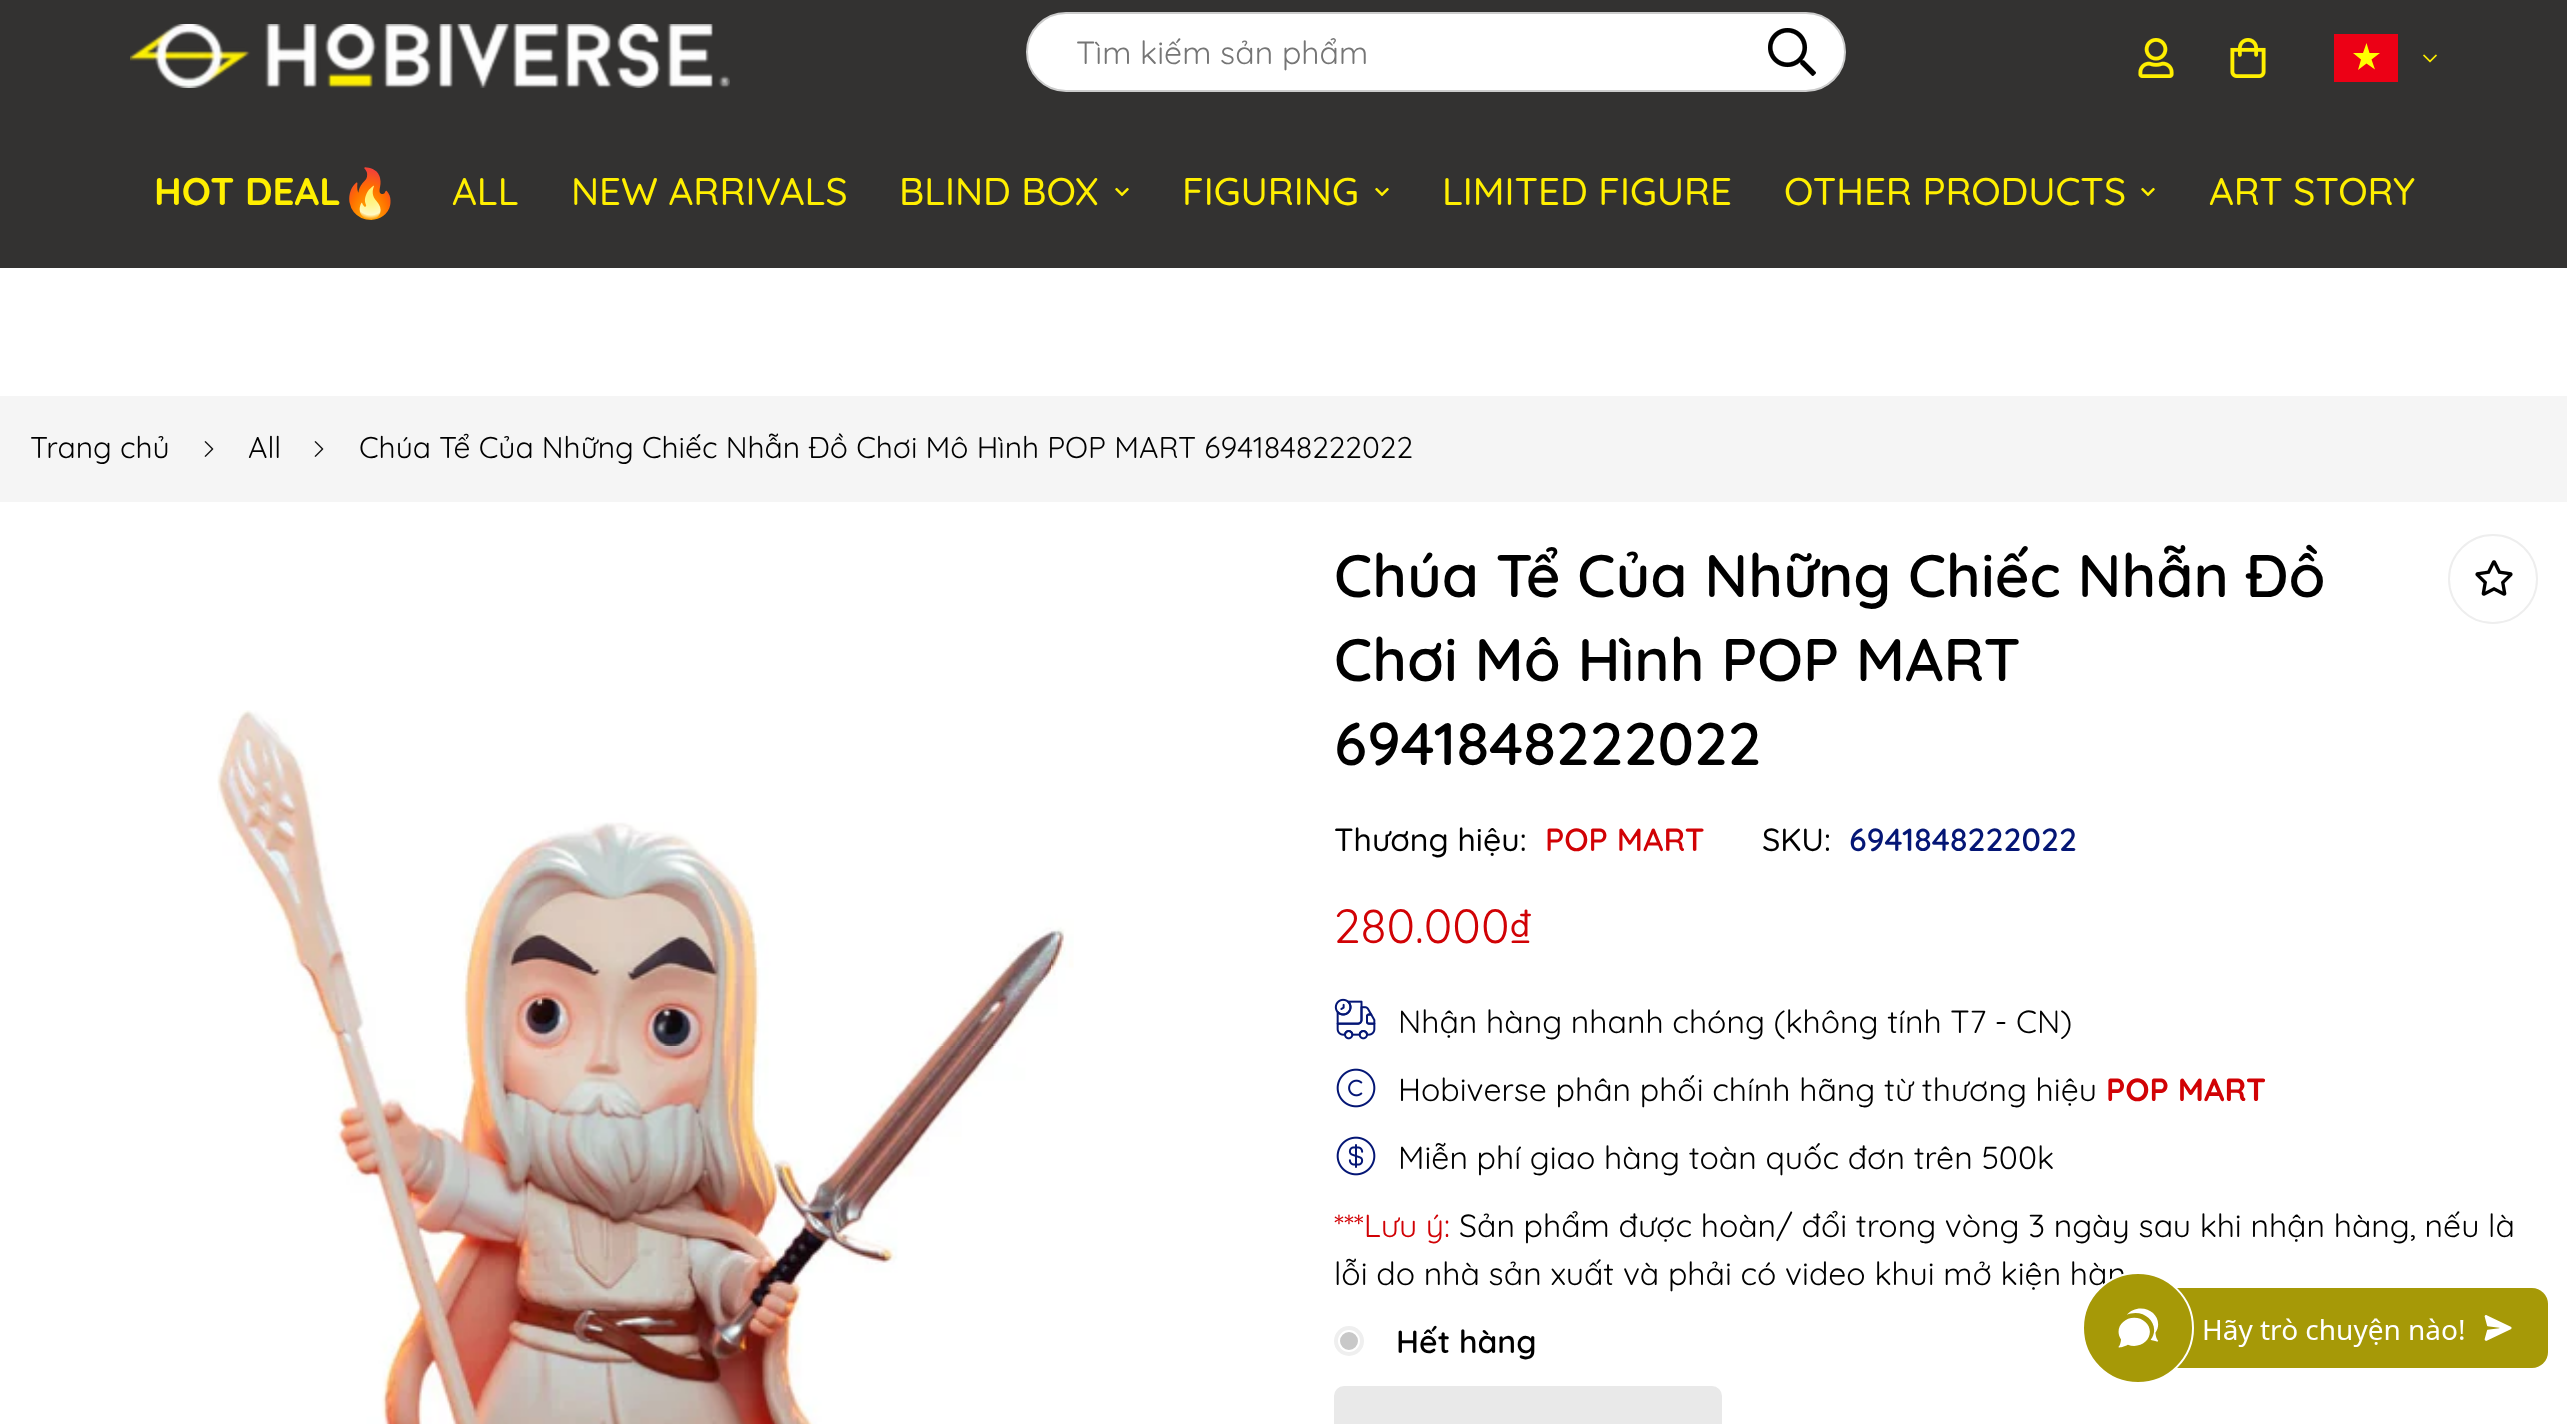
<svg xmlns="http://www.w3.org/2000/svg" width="2567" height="1424">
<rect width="100%" height="100%" fill="#fff"/>
<rect width="2567" height="268" fill="#333231"/>
<image x="130" y="24" width="600" height="64" href="media/1.png"/>
<rect x="1027" y="13" width="818" height="78" rx="39" fill="#fff" stroke="#ccc" stroke-width="2"/>
<text x="1076" y="64" style="font-family:Quicksand;font-size:32px;fill:#757575">Tìm kiếm sản phẩm</text>
<image x="1768" y="28" width="48" height="48" href="media/2.png"/>
<image x="2138" y="38" width="36" height="40" href="media/3.png"/>
<image x="2230" y="38" width="36" height="40" href="media/4.png"/>
<rect x="2334" y="34" width="64" height="48" fill="#ec0015"/>
<path d="M2375 69.5l-8.5-6l-8.5 6.5l3-10.5l-8-6.5h10l3.5-10l3 10h10.5l-8.5 6.5z" fill="#ff0" fill-rule="evenodd"/>
<image x="2423" y="54" width="14" height="9" href="media/5.png"/>
<text x="154" y="205" style="font-family:Quicksand;font-size:38.5px;font-weight:bold;fill:#ffef00">HOT DEAL</text>
<text x="340" y="210" style="font-family:Noto Color Emoji;font-size:48px;font-weight:bold;fill:#ffef00">🔥</text>
<text x="452" y="205" style="font-family:Quicksand;font-size:38.5px;font-weight:500;fill:#ffef00">ALL</text>
<text x="571" y="205" style="font-family:Quicksand;font-size:38.5px;font-weight:500;fill:#ffef00">NEW ARRIVALS</text>
<text x="899" y="205" style="font-family:Quicksand;font-size:38.5px;font-weight:500;fill:#ffef00">BLIND BOX</text>
<image x="1115" y="187" width="14" height="10" href="media/6.png"/>
<text x="1182" y="205" style="font-family:Quicksand;font-size:38.5px;font-weight:500;fill:#ffef00">FIGURING</text>
<image x="1375" y="187" width="14" height="10" href="media/6.png"/>
<text x="1442" y="205" style="font-family:Quicksand;font-size:38.5px;font-weight:500;fill:#ffef00">LIMITED FIGURE</text>
<text x="1784" y="205" style="font-family:Quicksand;font-size:38.5px;font-weight:500;fill:#ffef00">OTHER PRODUCTS</text>
<image x="2141" y="187" width="14" height="10" href="media/6.png"/>
<text x="2209" y="205" style="font-family:Quicksand;font-size:38.5px;font-weight:500;fill:#ffef00">ART STORY</text>
<rect y="396" width="2567" height="106" fill="#f5f5f5"/>
<text x="30" y="458" style="font-family:Quicksand;font-size:30px;fill:#000">Trang chủ</text>
<image x="204" y="441" width="10" height="16" href="media/7.png"/>
<text x="248" y="458" style="font-family:Quicksand;font-size:30px;fill:#000">All</text>
<image x="314" y="441" width="10" height="16" href="media/7.png"/>
<text x="359" y="458" style="font-family:Quicksand;font-size:30px;fill:#000">Chúa Tể Của Những Chiếc Nhẫn Đồ Chơi Mô Hình POP MART 6941848222022</text>
<image x="217" y="710" width="857" height="714" href="media/8.png"/>
<text x="1334" y="597" style="font-family:Quicksand;font-size:60px;font-weight:600;fill:#000">Chúa Tể Của Những Chiếc Nhẫn Đồ</text>
<text x="1334" y="681" style="font-family:Quicksand;font-size:60px;font-weight:600;fill:#000">Chơi Mô Hình POP MART</text>
<text x="1334" y="765" style="font-family:Quicksand;font-size:60px;font-weight:600;fill:#000">6941848222022</text>
<circle cx="2493" cy="579" r="44" fill="none" stroke="#eee" stroke-width="2"/>
<image x="2475" y="560" width="38" height="36" href="media/9.png"/>
<text x="1334" y="851" style="font-family:Quicksand;font-size:32px;font-weight:500;fill:#000">Thương hiệu:</text>
<text x="1545" y="851" style="font-family:Quicksand;font-size:32px;font-weight:600;fill:#d10205">POP MART</text>
<text x="1762" y="851" style="font-family:Quicksand;font-size:32px;font-weight:500;fill:#000">SKU:</text>
<text x="1849" y="851" style="font-family:Quicksand;font-size:32px;font-weight:600;fill:#041675">6941848222022</text>
<text x="1334" y="943" style="font-family:Quicksand;font-size:48px;fill:#d10205">280.000₫</text>
<image x="1334" y="998" width="42" height="42" href="media/10.png"/>
<text x="1398" y="1033" style="font-family:Quicksand;font-size:32px;fill:#000">Nhận hàng nhanh chóng (không tính T7 - CN)</text>
<image x="1336" y="1068" width="40" height="40" href="media/11.png"/>
<text x="1398" y="1101" style="font-family:Quicksand;font-size:32px;fill:#000">Hobiverse phân phối chính hãng từ thương hiệu</text>
<text x="2106" y="1101" style="font-family:Quicksand;font-size:32px;font-weight:bold;fill:#d10205">POP MART</text>
<image x="1336" y="1136" width="40" height="40" href="media/12.png"/>
<text x="1398" y="1169" style="font-family:Quicksand;font-size:32px;fill:#000">Miễn phí giao hàng toàn quốc đơn trên 500k</text>
<text x="1334" y="1237" style="font-family:Quicksand;font-size:32px;fill:#d10205">***Lưu ý:</text>
<text x="1459" y="1237" style="font-family:Quicksand;font-size:32px;fill:#000">Sản phẩm được hoàn/ đổi trong vòng 3 ngày sau khi nhận hàng, nếu là</text>
<text x="1334" y="1285" style="font-family:Quicksand;font-size:32px;fill:#000">lỗi do nhà sản xuất và phải có video khui mở kiện hàn</text>
<circle cx="1349" cy="1341" r="15" fill="#efefef"/>
<circle cx="1349" cy="1341" r="10" fill="#c8c8c8" stroke="#fff" stroke-width="2"/>
<text x="1396" y="1353" style="font-family:Quicksand;font-size:32px;font-weight:600;fill:#000">Hết hàng</text>
<rect x="1335" y="1387" width="386" height="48" rx="9" fill="#e9e9e9" stroke="#e9e9e9" stroke-width="2"/>
<image x="2084" y="1272" width="464" height="110" href="media/13.png"/>
</svg>
